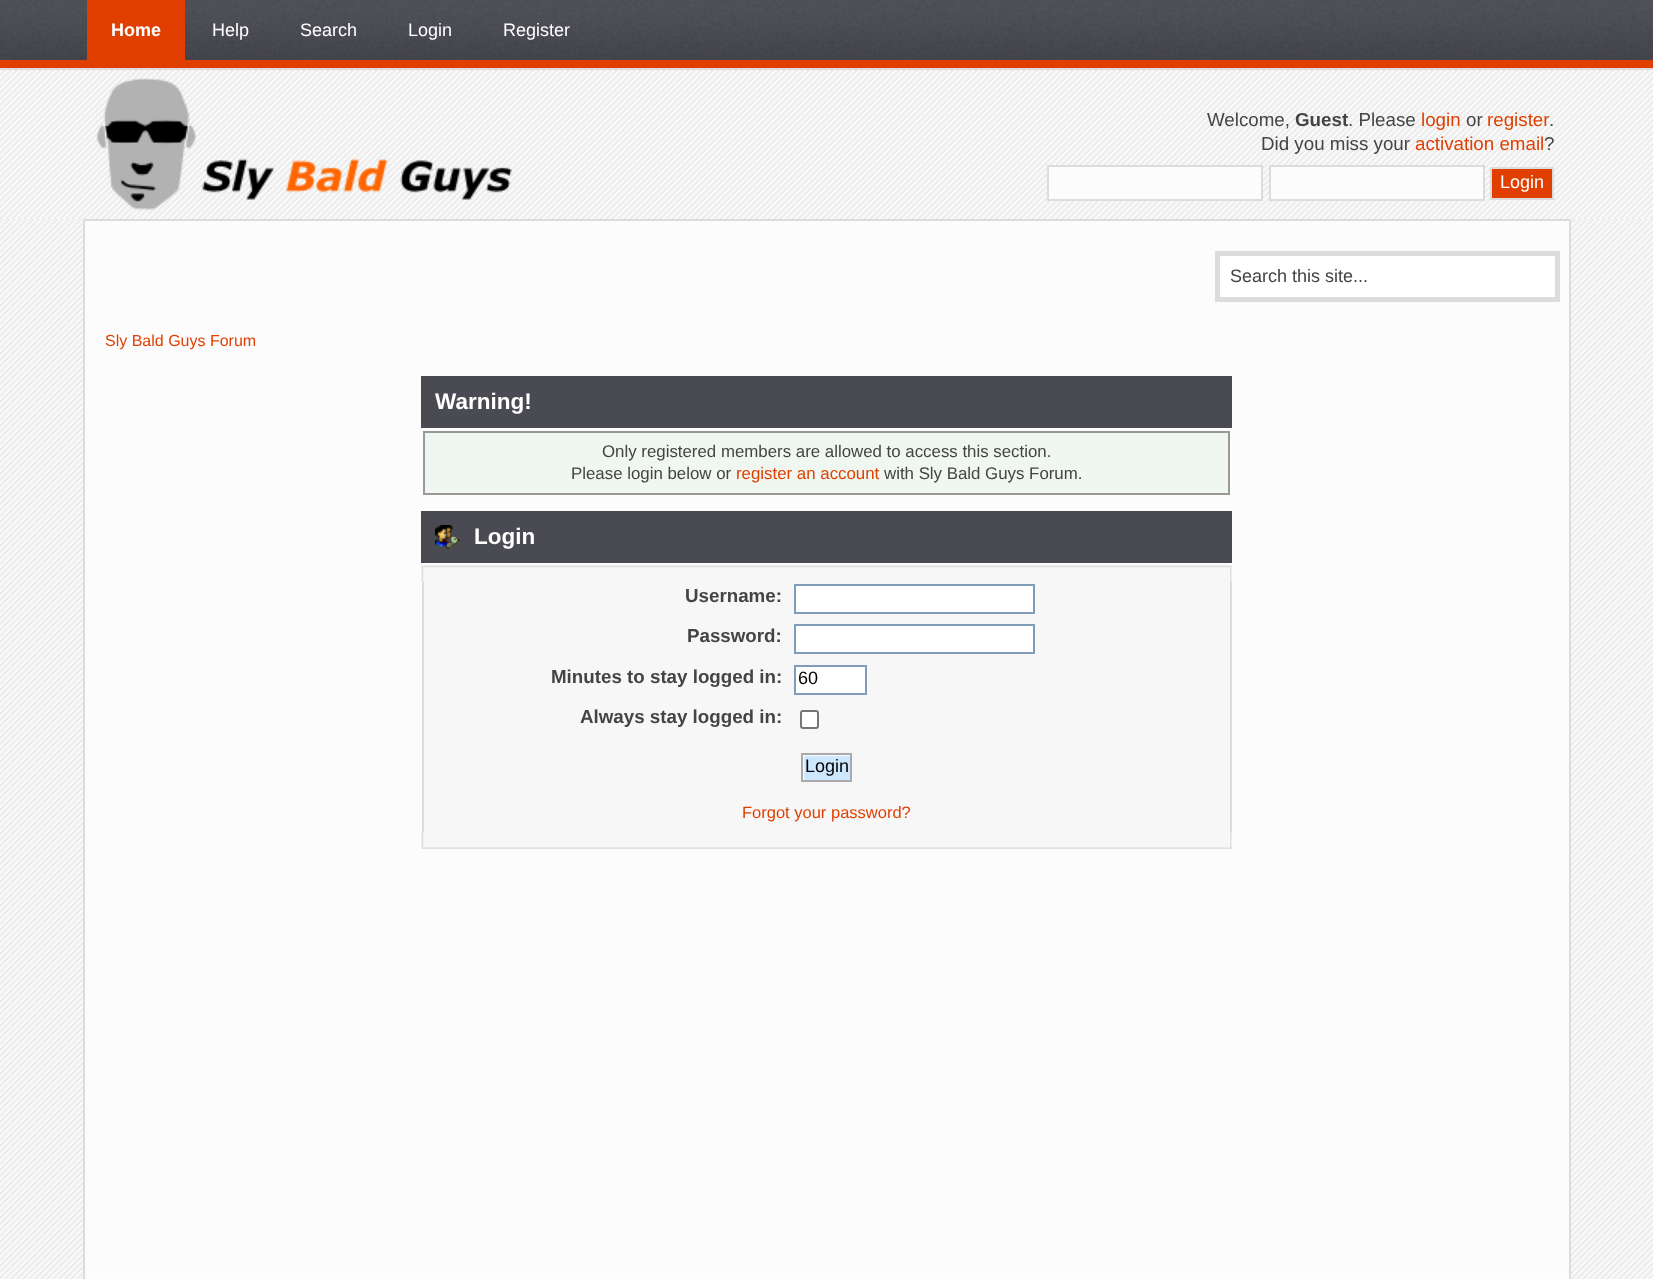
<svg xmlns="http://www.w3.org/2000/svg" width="1653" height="1279">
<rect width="100%" height="100%" fill="#f9f9f9"/>
<image x="0" y="219" width="1653" height="1060" href="media/1.png"/>
<image x="0" y="0" width="1653" height="60" href="media/2.png"/>
<rect y="60" width="1653" height="8" fill="#e03f00"/>
<rect x="87" width="98" height="60" fill="#e03f00"/>
<text x="111" y="36" style="font-family:Liberation Sans;font-size:18px;font-weight:bold;fill:#fff">Home</text>
<text x="212" y="36" style="font-family:Liberation Sans;font-size:18px;fill:#fff">Help</text>
<text x="300" y="36" style="font-family:Liberation Sans;font-size:18px;fill:#fff">Search</text>
<text x="408" y="36" style="font-family:Liberation Sans;font-size:18px;fill:#fff">Login</text>
<text x="503" y="36" style="font-family:Liberation Sans;font-size:18px;fill:#fff">Register</text>
<image x="0" y="67" width="1653" height="152" href="media/3.png"/>
<rect y="68" width="1653" height="2" fill="#dcdcdc"/>
<image x="96" y="78" width="416" height="133" href="media/4.png"/>
<text x="1207" y="126" style="font-family:Liberation Sans;font-size:18.75px;fill:#444">Welcome,</text>
<text x="1295" y="126" style="font-family:Liberation Sans;font-size:18.75px;font-weight:bold;fill:#444">Guest</text>
<text x="1348" y="126" style="font-family:Liberation Sans;font-size:18.75px;fill:#444">. Please</text>
<text x="1421" y="126" style="font-family:Liberation Sans;font-size:18.75px;fill:#e03f00">login</text>
<text x="1466" y="126" style="font-family:Liberation Sans;font-size:18.75px;fill:#444">or</text>
<text x="1487" y="126" style="font-family:Liberation Sans;font-size:18.75px;fill:#e03f00">register</text>
<text x="1549" y="126" style="font-family:Liberation Sans;font-size:18.75px;fill:#444">.</text>
<text x="1261" y="150" style="font-family:Liberation Sans;font-size:18.75px;fill:#444">Did you miss your</text>
<text x="1415" y="150" style="font-family:Liberation Sans;font-size:18.75px;fill:#e03f00">activation email</text>
<text x="1544" y="150" style="font-family:Liberation Sans;font-size:18.75px;fill:#444">?</text>
<rect x="1048" y="166" width="214" height="34" fill="#fcfcfc" stroke="#dcdcdc" stroke-width="2"/>
<rect x="1270" y="166" width="214" height="34" fill="#fcfcfc" stroke="#dcdcdc" stroke-width="2"/>
<rect x="1491" y="168" width="62" height="31" fill="#e03f00" stroke="#dcdcdc" stroke-width="2"/>
<text x="1500" y="188" style="font-family:Liberation Sans;font-size:18px;fill:#fff">Login</text>
<rect x="85" y="221" width="1484" height="1058" fill="#fcfcfc"/>
<rect x="83" y="219" width="1488" height="2" fill="#dcdcdc"/>
<rect x="1569" y="219" width="2" height="1060" fill="#dcdcdc"/>
<rect x="83" y="219" width="2" height="1060" fill="#dcdcdc"/>
<rect x="1217.5" y="253.5" width="340" height="46" fill="#fff" stroke="#dcdcdc" stroke-width="5"/>
<text x="1230" y="282" style="font-family:Liberation Sans;font-size:18px;fill:#444">Search this site...</text>
<text x="105" y="346" style="font-family:Liberation Sans;font-size:16px;fill:#e03f00">Sly Bald Guys Forum</text>
<rect x="421" y="376" width="811" height="52" fill="#4a4a52"/>
<text x="435" y="409" style="font-family:Liberation Sans;font-size:22.5px;font-weight:bold;fill:#fff">Warning!</text>
<rect x="424" y="432" width="805" height="62" fill="#f0f6f0" stroke="#999" stroke-width="2"/>
<text x="602" y="457" style="font-family:Liberation Sans;font-size:16.85px;fill:#444">Only registered members are allowed to access this section.</text>
<text x="571" y="479" style="font-family:Liberation Sans;font-size:16.85px;fill:#444">Please login below or</text>
<text x="736" y="479" style="font-family:Liberation Sans;font-size:16.85px;fill:#e03f00">register an account</text>
<text x="884" y="479" style="font-family:Liberation Sans;font-size:16.85px;fill:#444">with Sly Bald Guys Forum.</text>
<rect x="421" y="511" width="811" height="52" fill="#4a4a52"/>
<image x="435" y="525" width="25" height="24" href="media/5.png"/>
<text x="474" y="544" style="font-family:Liberation Sans;font-size:22.5px;font-weight:bold;fill:#fff">Login</text>
<image x="421" y="565" width="811" height="17" href="media/6.png"/>
<image x="1230" y="566" width="2" height="16" href="media/7.png"/>
<rect x="424" y="582" width="806" height="251" fill="#f7f7f7"/>
<rect x="1230" y="582" width="2" height="251" fill="#dcdcdc"/>
<rect x="422" y="582" width="2" height="251" fill="#dcdcdc"/>
<text x="685" y="602" style="font-family:Liberation Sans;font-size:18.75px;font-weight:bold;fill:#444">Username:</text>
<rect x="795" y="585" width="239" height="28" fill="#fff" stroke="#7f9db9" stroke-width="2"/>
<text x="687" y="642" style="font-family:Liberation Sans;font-size:18.75px;font-weight:bold;fill:#444">Password:</text>
<rect x="795" y="625" width="239" height="28" fill="#fff" stroke="#7f9db9" stroke-width="2"/>
<text x="551" y="683" style="font-family:Liberation Sans;font-size:18.75px;font-weight:bold;fill:#444">Minutes to stay logged in:</text>
<rect x="795" y="666" width="71" height="28" fill="#fff" stroke="#7f9db9" stroke-width="2"/>
<text x="798" y="684" style="font-family:Liberation Sans;font-size:18px;fill:#000">60</text>
<text x="580" y="723" style="font-family:Liberation Sans;font-size:18.75px;font-weight:bold;fill:#444">Always stay logged in:</text>
<rect x="801" y="711" width="17" height="17" rx="2" fill="#fff" stroke="#767676" stroke-width="2"/>
<image x="803" y="755" width="47" height="25" href="media/8.png"/>
<rect x="802" y="754" width="49" height="27" fill="none" stroke="#aaa" stroke-width="2"/>
<text x="805" y="772" style="font-family:Liberation Sans;font-size:18px;fill:#000">Login</text>
<text x="742" y="818" style="font-family:Liberation Sans;font-size:16.5px;fill:#e03f00">Forgot your password?</text>
<image x="421" y="832" width="811" height="17" href="media/9.png"/>
<image x="1230" y="832" width="2" height="17" href="media/10.png"/>
</svg>
